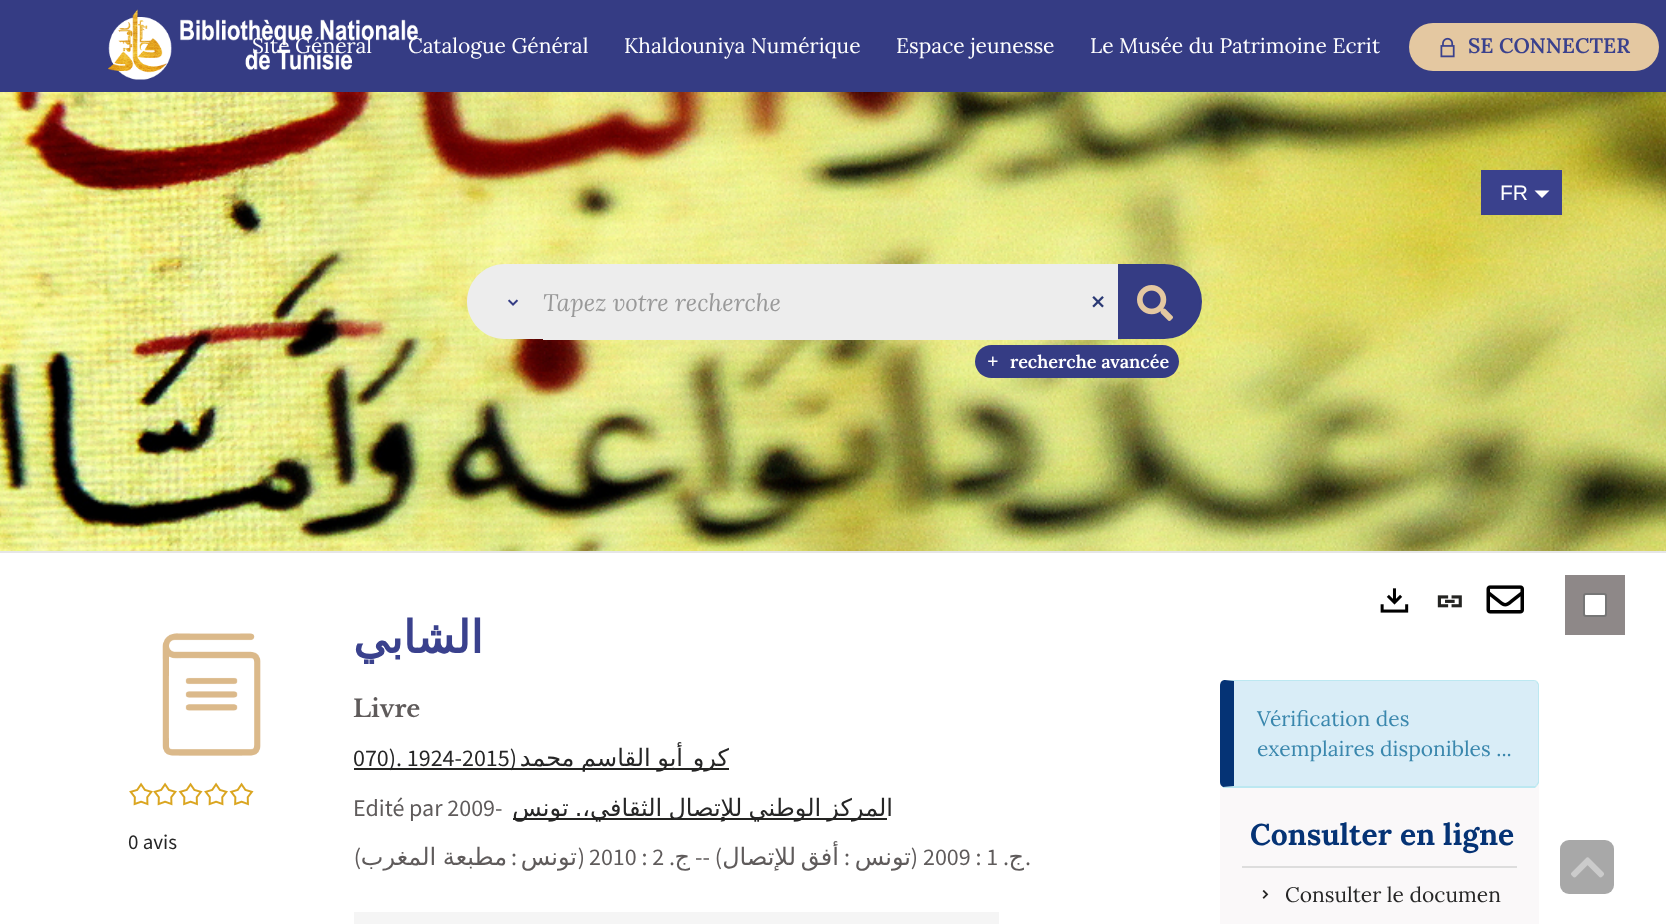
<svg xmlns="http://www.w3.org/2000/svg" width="1666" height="924">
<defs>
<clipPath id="clip1"><rect x="543" y="287" width="543" height="30"/></clipPath>
</defs>
<rect width="100%" height="100%" fill="#fff"/>
<image x="0" y="92" width="1666" height="459" href="media/1.png"/>
<rect width="1666" height="92" fill="#353c84"/>
<image x="108" y="9" width="310" height="71" href="media/2.png"/>
<text x="252" y="53" style="font-family:Lora;font-size:21px;fill:#fff">Site Général</text>
<text x="408" y="53" style="font-family:Lora;font-size:21px;fill:#fff">Catalogue Général</text>
<text x="624" y="53" style="font-family:Lora;font-size:21px;fill:#fff">Khaldouniya Numérique</text>
<text x="896" y="53" style="font-family:Lora;font-size:21px;fill:#fff">Espace jeunesse</text>
<text x="1090" y="53" style="font-family:Lora;font-size:21px;fill:#fff">Le Musée du Patrimoine Ecrit</text>
<rect x="1409" y="23" width="250" height="48" rx="24" fill="#e4c8a1"/>
<image x="1440" y="37" width="15" height="21" href="media/3.png"/>
<text x="1468" y="53" style="font-family:Lora;font-size:21px;font-weight:600;fill:#3a418d">SE CONNECTER</text>
<rect x="1481" y="170" width="81" height="45" fill="#3a418d"/>
<text x="1500" y="200" style="font-family:Liberation Sans;font-size:21px;fill:#fff">FR</text>
<path d="M1534.5 190.5h15l-7.5 7.5z" fill="#fff"/>
<path d="M504.5 264h40.5v75h-40.5c-20.5 0-37.5-17-37.5-37.5c0-20.5 17-37.5 37.5-37.5z" fill="#ededed"/>
<image x="508" y="299" width="11" height="7" href="media/4.png"/>
<rect x="545" y="264" width="573" height="74" fill="#ededed"/>
<rect x="543" y="338" width="575" height="2" fill="#ededed"/>
<g clip-path="url(#clip1)">
<text x="543" y="311" style="font-family:Lora;font-size:24px;font-style:italic;fill:#999">Tapez votre recherche</text>
</g>
<image x="1092" y="296" width="12" height="12" href="media/5.png"/>
<path d="M1119 265h45.5c20 0 36.5 16.5 36.5 36.5c0 20-16.5 36.5-36.5 36.5h-45.5z" fill="#353c84" stroke="#353c84" stroke-width="2"/>
<image x="1137" y="285" width="36" height="36" href="media/6.png"/>
<rect x="975" y="345" width="204" height="33" rx="16.5" fill="#353c84"/>
<image x="988" y="356" width="10" height="10" href="media/7.png"/>
<text x="1010" y="368" style="font-family:Lora;font-size:18px;font-weight:600;fill:#fff">recherche avancée</text>
<rect y="551" width="1666" height="2" fill="#e6e6e6"/>
<image x="162" y="633" width="99" height="123" href="media/8.png"/>
<image x="129" y="782" width="24" height="24" href="media/9.png"/>
<image x="153" y="782" width="24" height="24" href="media/9.png"/>
<image x="178" y="782" width="25" height="24" href="media/10.png"/>
<image x="204" y="782" width="24" height="24" href="media/9.png"/>
<image x="229" y="782" width="25" height="24" href="media/10.png"/>
<text x="128" y="849" style="font-family:Source Sans Pro;font-size:21px;fill:#262626">0 avis</text>
<text x="483" y="653" style="font-family:DejaVu Sans;font-size:45px;font-weight:bold;direction:rtl;fill:#3a418d">الشابي</text>
<text x="353" y="717" style="font-family:Libre Baskerville;font-size:24px;font-weight:bold;fill:#5f5b5b">Livre</text>
<rect x="354" y="768" width="375" height="2" fill="#242422"/>
<text x="353" y="766" style="font-family:Source Sans Pro;font-size:24px;fill:#262626">070). 1924-2015</text>
<text x="517" y="766" style="font-family:Source Sans Pro;font-size:24px;direction:rtl;fill:#262626">(</text>
<text x="683" y="766" word-spacing="-1" style="font-family:DejaVu Sans;font-size:24px;direction:rtl;fill:#262626">أبو القاسم محمد</text>
<text x="729" y="766" style="font-family:DejaVu Sans;font-size:24px;direction:rtl;fill:#262626">كرو</text>
<text x="353" y="816" style="font-family:Source Sans Pro;font-size:24px;fill:#5f5b5b">Edité par 2009-</text>
<rect x="513" y="818" width="374" height="2" fill="#242422"/>
<text x="893" y="816" word-spacing="-1.5" style="font-family:DejaVu Sans;font-size:24px;direction:rtl;fill:#262626">المركز الوطني للإتصال الثقافي،. تونس</text>
<text x="361" y="865" style="font-family:Source Sans Pro;font-size:24px;direction:rtl;fill:#5f5b5b">)</text>
<text x="507" y="865" word-spacing="-1" style="font-family:DejaVu Sans;font-size:24px;direction:rtl;fill:#5f5b5b">مطبعة المغرب</text>
<text x="517" y="865" style="font-family:Source Sans Pro;font-size:24px;direction:rtl;fill:#5f5b5b">:</text>
<text x="577" y="865" style="font-family:DejaVu Sans;font-size:24px;direction:rtl;fill:#5f5b5b">تونس</text>
<text x="585" y="865" style="font-family:Source Sans Pro;font-size:24px;direction:rtl;fill:#5f5b5b">(</text>
<text x="589" y="865" style="font-family:Source Sans Pro;font-size:24px;fill:#5f5b5b">2010 : 2</text>
<text x="675" y="865" style="font-family:Source Sans Pro;font-size:24px;direction:rtl;fill:#5f5b5b">.</text>
<text x="690" y="865" style="font-family:DejaVu Sans;font-size:24px;direction:rtl;fill:#5f5b5b">ج</text>
<text x="722" y="865" style="font-family:Source Sans Pro;font-size:24px;direction:rtl;fill:#5f5b5b">) --</text>
<text x="796" y="865" style="font-family:DejaVu Sans;font-size:24px;direction:rtl;fill:#5f5b5b">للإتصال</text>
<text x="839" y="865" style="font-family:DejaVu Sans;font-size:24px;direction:rtl;fill:#5f5b5b">أفق</text>
<text x="850" y="865" style="font-family:Source Sans Pro;font-size:24px;direction:rtl;fill:#5f5b5b">:</text>
<text x="911" y="865" style="font-family:DejaVu Sans;font-size:24px;direction:rtl;fill:#5f5b5b">تونس</text>
<text x="918" y="865" style="font-family:Source Sans Pro;font-size:24px;direction:rtl;fill:#5f5b5b">(</text>
<text x="923" y="865" style="font-family:Source Sans Pro;font-size:24px;fill:#5f5b5b">2009 : 1</text>
<text x="1009" y="865" style="font-family:Source Sans Pro;font-size:24px;direction:rtl;fill:#5f5b5b">.</text>
<text x="1024" y="865" style="font-family:DejaVu Sans;font-size:24px;direction:rtl;fill:#5f5b5b">ج</text>
<text x="1025" y="865" style="font-family:Source Sans Pro;font-size:24px;fill:#5f5b5b">.</text>
<rect x="354" y="912" width="645" height="12" fill="#f5f5f5"/>
<image x="1380" y="588" width="29" height="25" href="media/11.png"/>
<image x="1437" y="595" width="25" height="13" href="media/12.png"/>
<image x="1486" y="585" width="38" height="29" href="media/13.png"/>
<rect x="1565" y="575" width="60" height="60" fill="#8e8888"/>
<rect x="1584" y="594" width="22" height="22" rx="2" fill="#fff" stroke="#767676" stroke-width="2"/>
<rect x="1220" y="680" width="319" height="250" rx="6" fill="#faf8f9"/>
<path d="M1234 681h299c2 0 5 2 5 5v96c0 2-3 4-5 4h-299z" fill="#d9edf7"/>
<path d="M1226 680h-1l9 1h299c1 0 2 0 3 1l1-1c-1-1-3-1-4-1z" fill="#bce8f1"/>
<path d="M1537 681c1 1 2 3 2 4v98l-2 3l-1-1l2-3v-97l-2-3z" fill="#bce8f1"/>
<path d="M1223 788v-1l11-1h299c1 0 2 0 3-1l1 1l-2 2z" fill="#bce8f1"/>
<path d="M1234 681l-9-1c-3 0-5 2-5 6v96c0 2 1 4 3 5l11-1z" fill="#053375"/>
<text x="1257" y="726" style="font-family:Lora;font-size:21px;fill:#3a87ad">Vérification des</text>
<text x="1257" y="756" style="font-family:Lora;font-size:21px;fill:#3a87ad">exemplaires disponibles ...</text>
<text x="1250" y="845" style="font-family:Lora;font-size:30px;font-weight:bold;fill:#053375">Consulter en ligne</text>
<rect x="1242" y="866" width="275" height="2" fill="#ddd"/>
<image x="1262" y="890" width="7" height="9" href="media/14.png"/>
<text x="1285" y="902" style="font-family:Lora;font-size:21px;fill:#262626">Consulter le documen</text>
<rect x="1560" y="840" width="54" height="54" rx="9" fill="#a8a8a8"/>
<image x="1571" y="857" width="33" height="21" href="media/15.png"/>
</svg>
